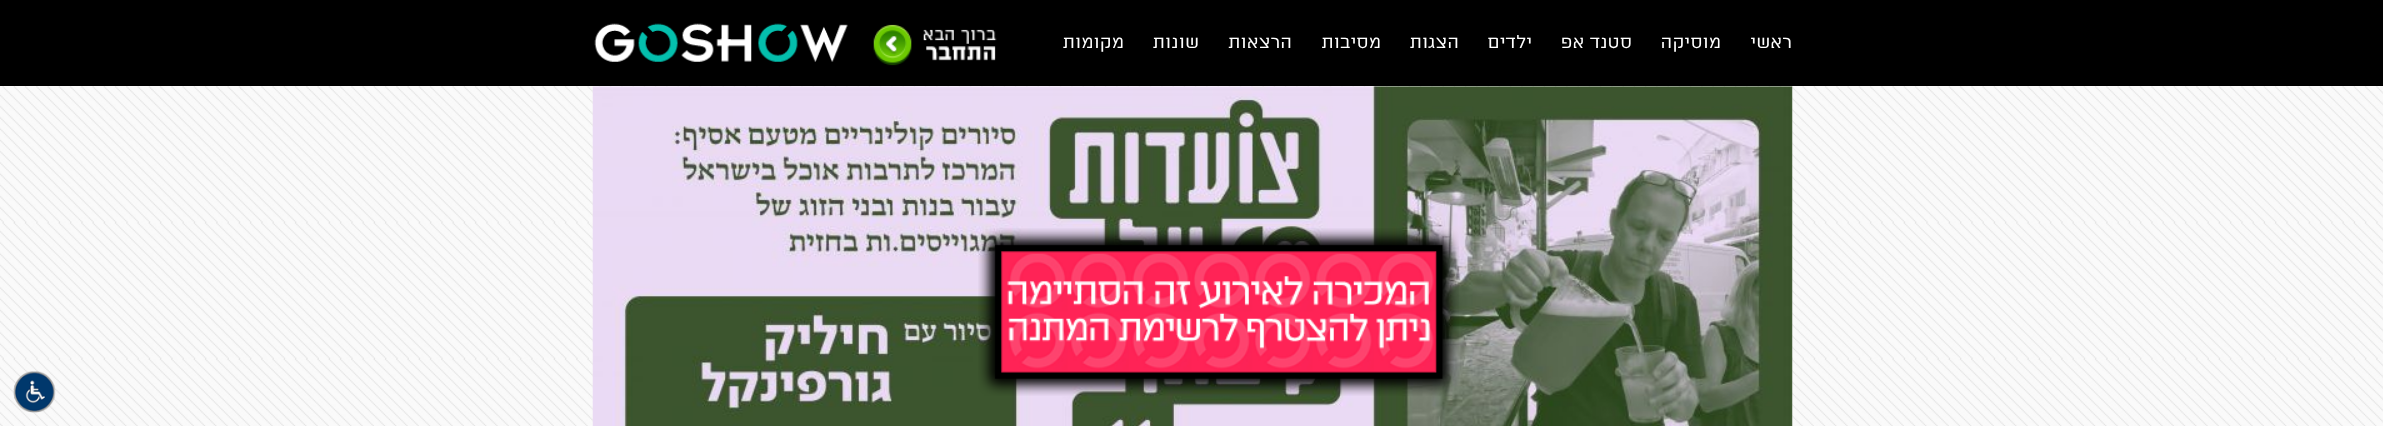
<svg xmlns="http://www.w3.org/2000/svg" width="2383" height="426">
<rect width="100%" height="100%" fill="#fff"/>
<rect width="2383" height="86" fill="#000"/>
<text x="1792" y="48" style="font-family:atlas;font-size:20px;direction:rtl;fill:#fff">ראשי</text>
<text x="1721" y="48" style="font-family:atlas;font-size:20px;direction:rtl;fill:#fff">מוסיקה</text>
<text x="1632" y="48" style="font-family:atlas;font-size:20px;direction:rtl;fill:#fff">סטנד אפ</text>
<text x="1532" y="48" style="font-family:atlas;font-size:20px;direction:rtl;fill:#fff">ילדים</text>
<text x="1459" y="48" style="font-family:atlas;font-size:20px;direction:rtl;fill:#fff">הצגות</text>
<text x="1381" y="48" style="font-family:atlas;font-size:20px;direction:rtl;fill:#fff">מסיבות</text>
<text x="1292" y="48" style="font-family:atlas;font-size:20px;direction:rtl;fill:#fff">הרצאות</text>
<text x="1199" y="48" style="font-family:atlas;font-size:20px;direction:rtl;fill:#fff">שונות</text>
<text x="1124" y="48" style="font-family:atlas;font-size:20px;direction:rtl;fill:#fff">מקומות</text>
<image x="873" y="24" width="124" height="42" href="media/1.png"/>
<image x="594" y="23" width="254" height="39" href="media/2.png"/>
<image x="0" y="86" width="2383" height="340" href="media/3.png"/>
<image x="592" y="86" width="1201" height="340" href="media/4.png"/>
<image x="978" y="228" width="481" height="168" href="media/5.png"/>
<image x="13" y="371" width="43" height="42" href="media/6.png"/>
</svg>
